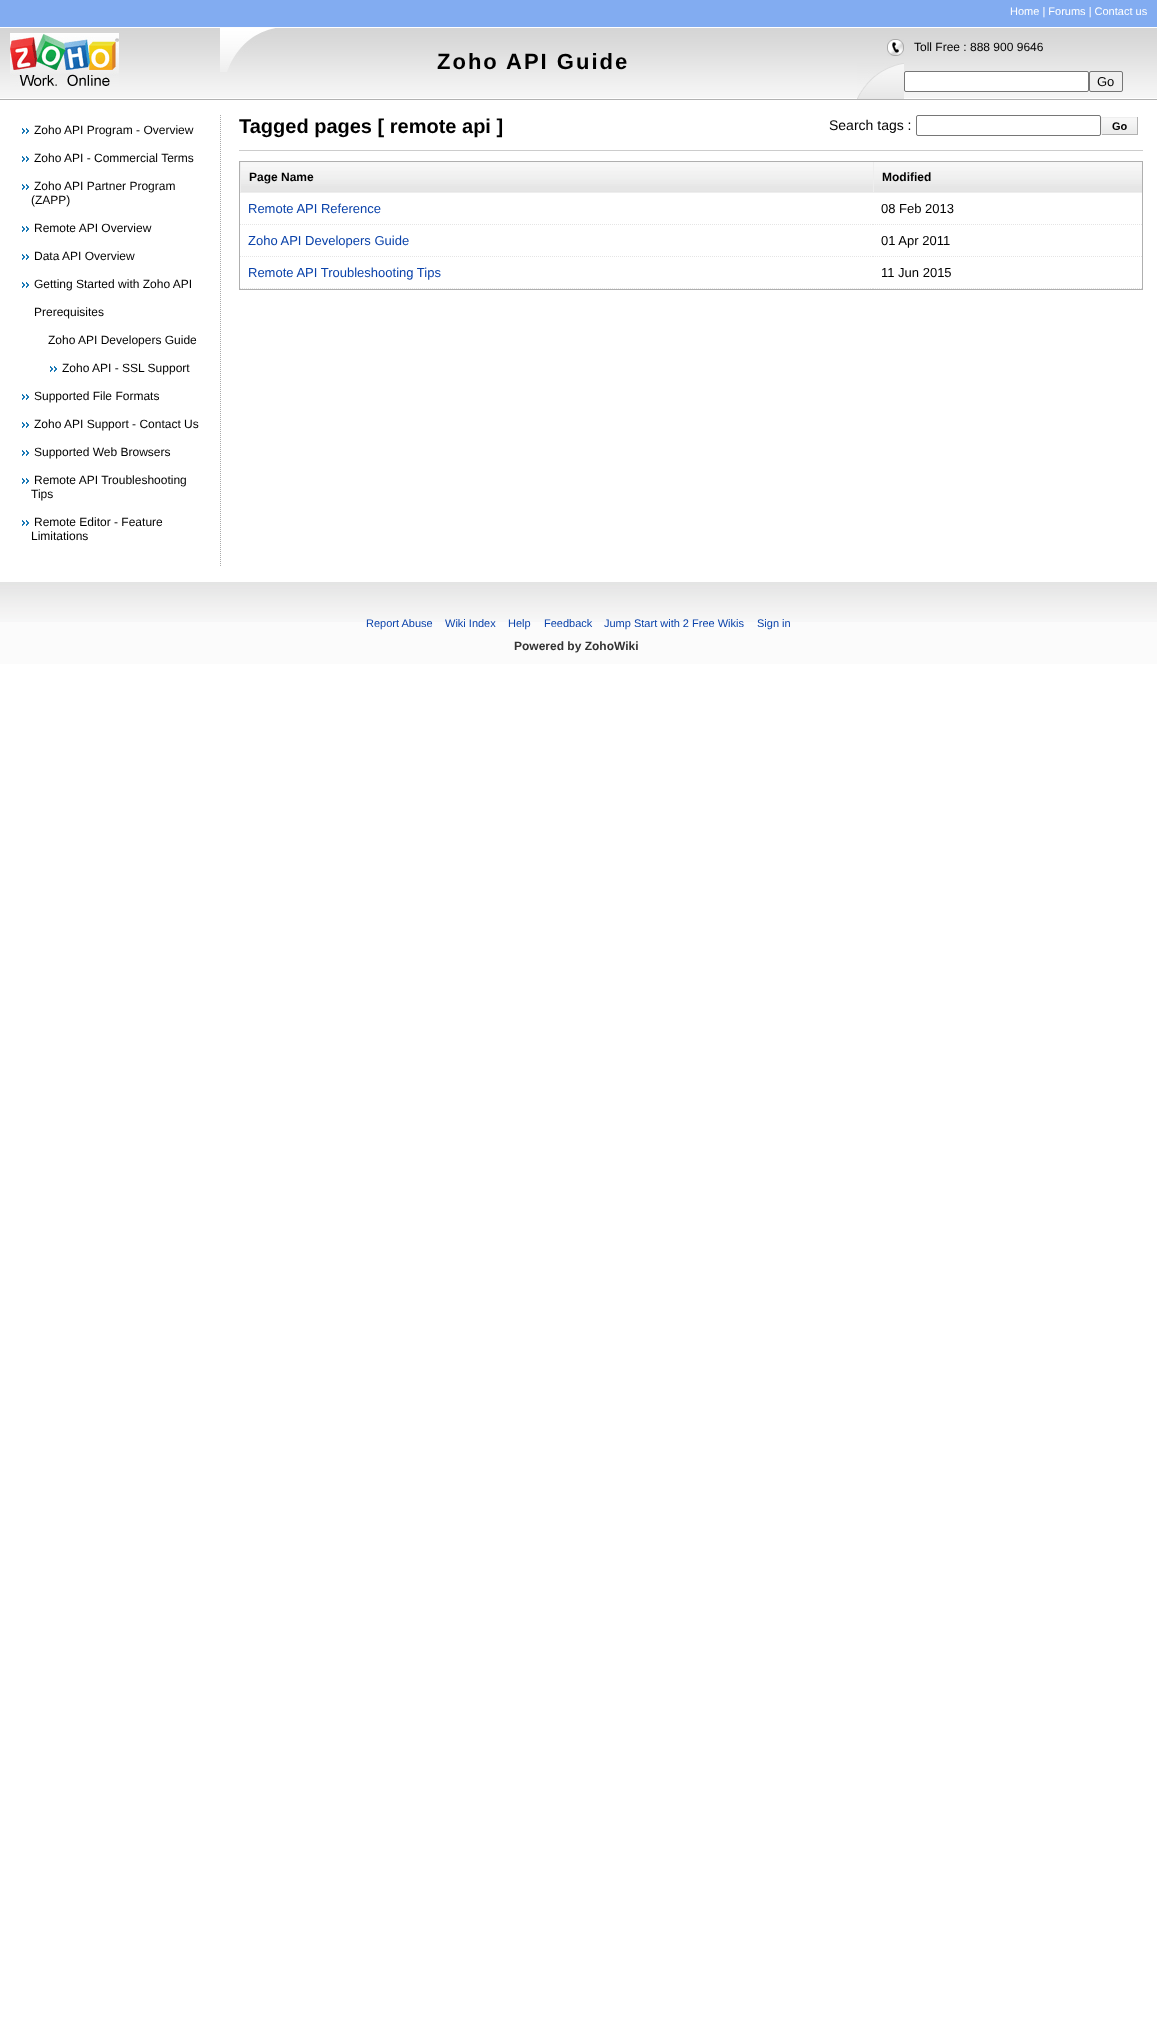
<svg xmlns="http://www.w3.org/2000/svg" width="1157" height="2031">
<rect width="100%" height="100%" fill="#fff"/>
<rect y="99" width="1157" height="1" fill="#b1b1b1"/>
<rect width="1157" height="27" fill="#82acf1"/>
<text x="1010" y="15" style="font-family:Liberation Sans;font-size:11px;fill:#fff">Home | Forums | Contact us</text>
<image x="0" y="28" width="1157" height="70" href="media/1.png"/>
<image x="10" y="33" width="109" height="53" href="media/2.png"/>
<image x="220" y="28" width="55" height="44" href="media/3.png"/>
<text x="437" y="69" style="font-family:Liberation Sans;font-size:22px;font-weight:bold;letter-spacing:2px;fill:#000">Zoho API Guide</text>
<image x="887" y="39" width="17" height="17" href="media/4.png"/>
<text x="914" y="51" style="font-family:Liberation Sans;font-size:12px;fill:#000">Toll Free : 888 900 9646</text>
<image x="857" y="63" width="47" height="36" href="media/5.png"/>
<rect x="904.5" y="71.5" width="184" height="20" rx="1.5" fill="#fff" stroke="#767676"/>
<rect x="1089.5" y="71.5" width="33" height="20" rx="1.5" fill="#efefef" stroke="#767676"/>
<text x="1097" y="86" style="font-family:Liberation Sans;font-size:13px;fill:#000">Go</text>
<image x="22" y="128" width="7" height="6" href="media/6.png"/>
<text x="34" y="134" style="font-family:Liberation Sans;font-size:12px;fill:#000">Zoho API Program - Overview</text>
<image x="22" y="156" width="7" height="6" href="media/6.png"/>
<text x="34" y="162" style="font-family:Liberation Sans;font-size:12px;fill:#000">Zoho API - Commercial Terms</text>
<image x="22" y="184" width="7" height="6" href="media/6.png"/>
<text x="34" y="190" style="font-family:Liberation Sans;font-size:12px;fill:#000">Zoho API Partner Program</text>
<text x="31" y="204" style="font-family:Liberation Sans;font-size:12px;fill:#000">(ZAPP)</text>
<image x="22" y="226" width="7" height="6" href="media/6.png"/>
<text x="34" y="232" style="font-family:Liberation Sans;font-size:12px;fill:#000">Remote API Overview</text>
<image x="22" y="254" width="7" height="6" href="media/6.png"/>
<text x="34" y="260" style="font-family:Liberation Sans;font-size:12px;fill:#000">Data API Overview</text>
<image x="22" y="282" width="7" height="6" href="media/6.png"/>
<text x="34" y="288" style="font-family:Liberation Sans;font-size:12px;fill:#000">Getting Started with Zoho API</text>
<text x="34" y="316" style="font-family:Liberation Sans;font-size:12px;fill:#000">Prerequisites</text>
<text x="48" y="344" style="font-family:Liberation Sans;font-size:12px;fill:#000">Zoho API Developers Guide</text>
<image x="50" y="366" width="7" height="6" href="media/6.png"/>
<text x="62" y="372" style="font-family:Liberation Sans;font-size:12px;fill:#000">Zoho API - SSL Support</text>
<image x="22" y="394" width="7" height="6" href="media/6.png"/>
<text x="34" y="400" style="font-family:Liberation Sans;font-size:12px;fill:#000">Supported File Formats</text>
<image x="22" y="422" width="7" height="6" href="media/6.png"/>
<text x="34" y="428" style="font-family:Liberation Sans;font-size:12px;fill:#000">Zoho API Support - Contact Us</text>
<image x="22" y="450" width="7" height="6" href="media/6.png"/>
<text x="34" y="456" style="font-family:Liberation Sans;font-size:12px;fill:#000">Supported Web Browsers</text>
<image x="22" y="478" width="7" height="6" href="media/6.png"/>
<text x="34" y="484" style="font-family:Liberation Sans;font-size:12px;fill:#000">Remote API Troubleshooting</text>
<text x="31" y="498" style="font-family:Liberation Sans;font-size:12px;fill:#000">Tips</text>
<image x="22" y="520" width="7" height="6" href="media/6.png"/>
<text x="34" y="526" style="font-family:Liberation Sans;font-size:12px;fill:#000">Remote Editor - Feature</text>
<text x="31" y="540" style="font-family:Liberation Sans;font-size:12px;fill:#000">Limitations</text>
<path d="M220.5 115v452" fill="none" stroke="#a9a9a9" stroke-dasharray="1 1"/>
<rect x="239" y="150" width="904" height="1" fill="#ccc"/>
<text x="239" y="133" style="font-family:Liberation Sans;font-size:20px;font-weight:bold;fill:#000">Tagged pages [ remote api ]</text>
<text x="829" y="130" style="font-family:Liberation Sans;font-size:14px;fill:#000">Search tags :</text>
<rect x="916.5" y="115.5" width="184" height="20" rx="1.5" fill="none" stroke="#767676"/>
<image x="1102" y="118" width="35" height="16" href="media/7.png"/>
<rect x="1101" y="117" width="37" height="1" fill="#eee"/>
<rect x="1137" y="117" width="1" height="18" fill="#b2b2b2"/>
<rect x="1101" y="134" width="37" height="1" fill="#b2b2b2"/>
<rect x="1101" y="117" width="1" height="18" fill="#eee"/>
<text x="1112" y="130" style="font-family:Liberation Sans;font-size:11px;font-weight:bold;fill:#000">Go</text>
<rect x="239.5" y="161.5" width="903" height="128" fill="none" stroke="#afafaf"/>
<image x="241" y="162" width="632" height="30" href="media/8.png"/>
<rect x="240" y="192" width="902" height="1" fill="#eee"/>
<rect x="240" y="162" width="1" height="31" fill="#eee"/>
<text x="249" y="181" style="font-family:Liberation Sans;font-size:12px;font-weight:bold;fill:#000">Page Name</text>
<image x="874" y="162" width="268" height="30" href="media/9.png"/>
<rect x="873" y="162" width="1" height="31" fill="#eee"/>
<text x="882" y="181" style="font-family:Liberation Sans;font-size:12px;font-weight:bold;fill:#000">Modified</text>
<path d="M240 224.5h633" fill="none" stroke="#e5e5e5" stroke-dasharray="1 1"/>
<text x="248" y="213" style="font-family:Liberation Sans;font-size:13px;fill:#0a42aa">Remote API Reference</text>
<path d="M873 224.5h269" fill="none" stroke="#e5e5e5" stroke-dasharray="1 1"/>
<text x="881" y="213" style="font-family:Liberation Sans;font-size:13px;fill:#000">08 Feb 2013</text>
<path d="M240 256.5h633" fill="none" stroke="#e5e5e5" stroke-dasharray="1 1"/>
<text x="248" y="245" style="font-family:Liberation Sans;font-size:13px;fill:#0a42aa">Zoho API Developers Guide</text>
<path d="M873 256.5h269" fill="none" stroke="#e5e5e5" stroke-dasharray="1 1"/>
<text x="881" y="245" style="font-family:Liberation Sans;font-size:13px;fill:#000">01 Apr 2011</text>
<path d="M240 288.5h633" fill="none" stroke="#e5e5e5" stroke-dasharray="1 1"/>
<text x="248" y="277" style="font-family:Liberation Sans;font-size:13px;fill:#0a42aa">Remote API Troubleshooting Tips</text>
<path d="M873 288.5h269" fill="none" stroke="#e5e5e5" stroke-dasharray="1 1"/>
<text x="881" y="277" style="font-family:Liberation Sans;font-size:13px;fill:#000">11 Jun 2015</text>
<rect y="622" width="1157" height="42" fill="#fbfbfb"/>
<image x="0" y="582" width="1157" height="40" href="media/10.png"/>
<text x="366" y="627" style="font-family:Liberation Sans;font-size:11px;fill:#0a42aa">Report Abuse</text>
<text x="445" y="627" style="font-family:Liberation Sans;font-size:11px;fill:#0a42aa">Wiki Index</text>
<text x="508" y="627" style="font-family:Liberation Sans;font-size:11px;fill:#0a42aa">Help</text>
<text x="544" y="627" style="font-family:Liberation Sans;font-size:11px;fill:#0a42aa">Feedback</text>
<text x="604" y="627" style="font-family:Liberation Sans;font-size:11px;fill:#0a42aa">Jump Start with 2 Free Wikis</text>
<text x="757" y="627" style="font-family:Liberation Sans;font-size:11px;fill:#0a42aa">Sign in</text>
<text x="514" y="650" style="font-family:Liberation Sans;font-size:12px;font-weight:bold;fill:#333">Powered by ZohoWiki</text>
</svg>
